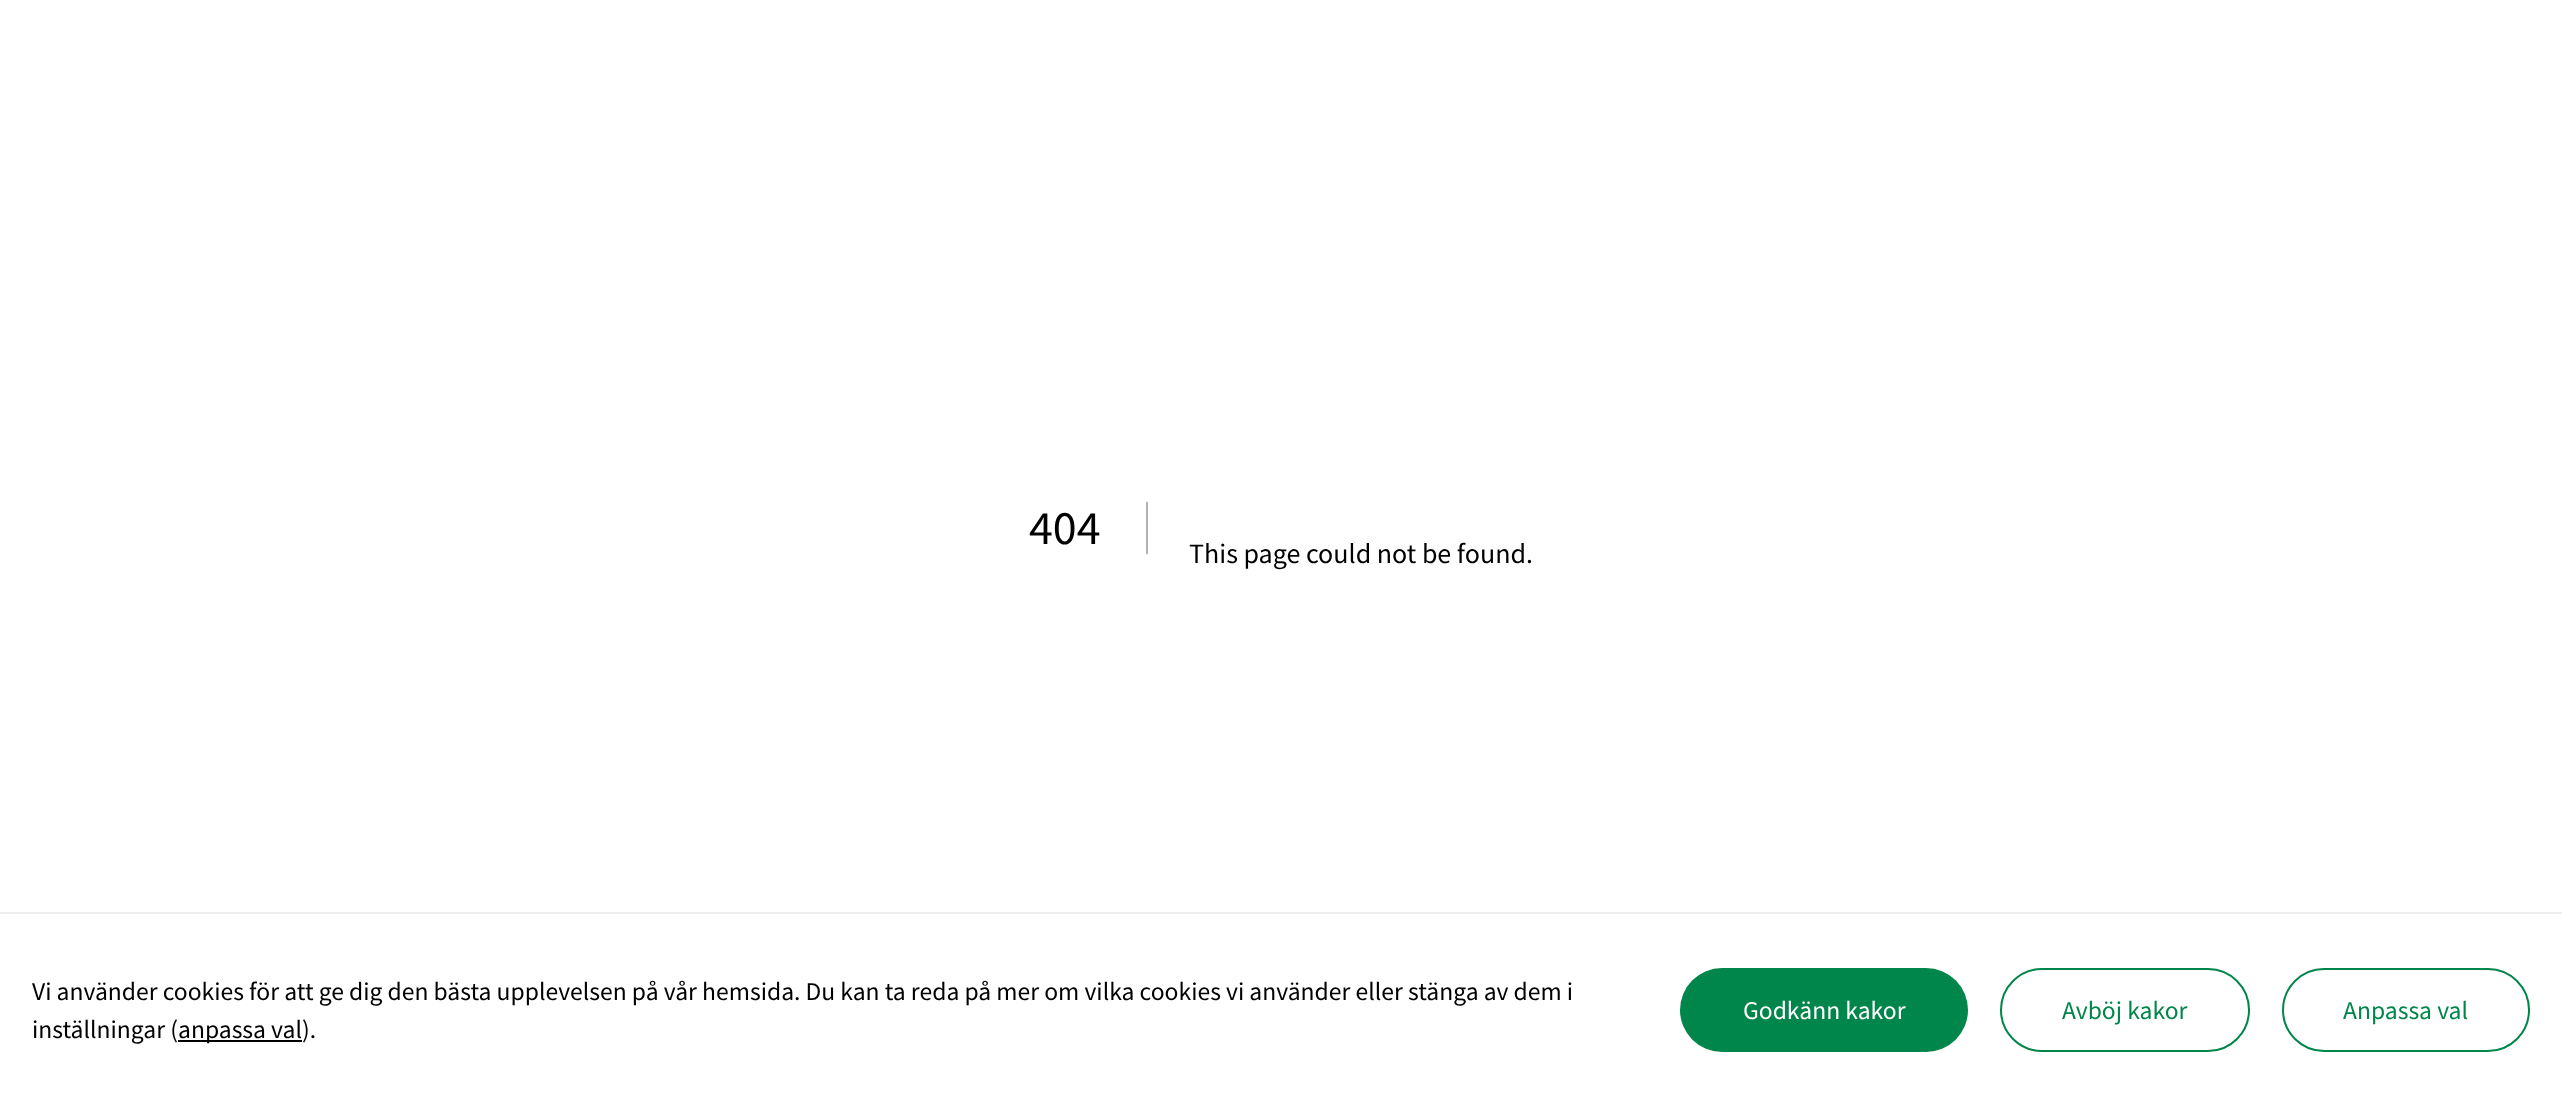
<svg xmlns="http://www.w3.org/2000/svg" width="2562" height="1106">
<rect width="100%" height="100%" fill="#fff"/>
<rect x="1146" y="502" width="2" height="52" fill="#b3b3b3"/>
<text x="1029" y="544" style="font-family:Source Sans Pro;font-size:48px;fill:#000">404</text>
<text x="1189" y="563" style="font-family:Source Sans Pro;font-size:28px;fill:#000">This page could not be found.</text>
<rect y="912" width="2562" height="2" fill="#eee"/>
<text x="32" y="1000" style="font-family:Source Sans Pro;font-size:25.6px;fill:#000">Vi använder cookies för att ge dig den bästa upplevelsen på vår hemsida. Du kan ta reda på mer om vilka cookies vi använder eller stänga av dem i</text>
<text x="32" y="1038" style="font-family:Source Sans Pro;font-size:25.6px;fill:#000">inställningar (</text>
<rect x="178" y="1040" width="124" height="2" fill="#000"/>
<text x="178" y="1038" style="font-family:Source Sans Pro;font-size:25.6px;fill:#000">anpassa val).</text>
<rect x="1680" y="968" width="288" height="84" rx="42" fill="#00854a"/>
<text x="1743" y="1019" style="font-family:Source Sans Pro;font-size:25.6px;fill:#fff">Godkänn kakor</text>
<rect x="2001" y="969" width="248" height="82" rx="41" fill="none" stroke="#00854a" stroke-width="2"/>
<text x="2062" y="1019" style="font-family:Source Sans Pro;font-size:25.6px;fill:#00854a">Avböj kakor</text>
<rect x="2283" y="969" width="246" height="82" rx="41" fill="none" stroke="#00854a" stroke-width="2"/>
<text x="2343" y="1019" style="font-family:Source Sans Pro;font-size:25.6px;fill:#00854a">Anpassa val</text>
</svg>
